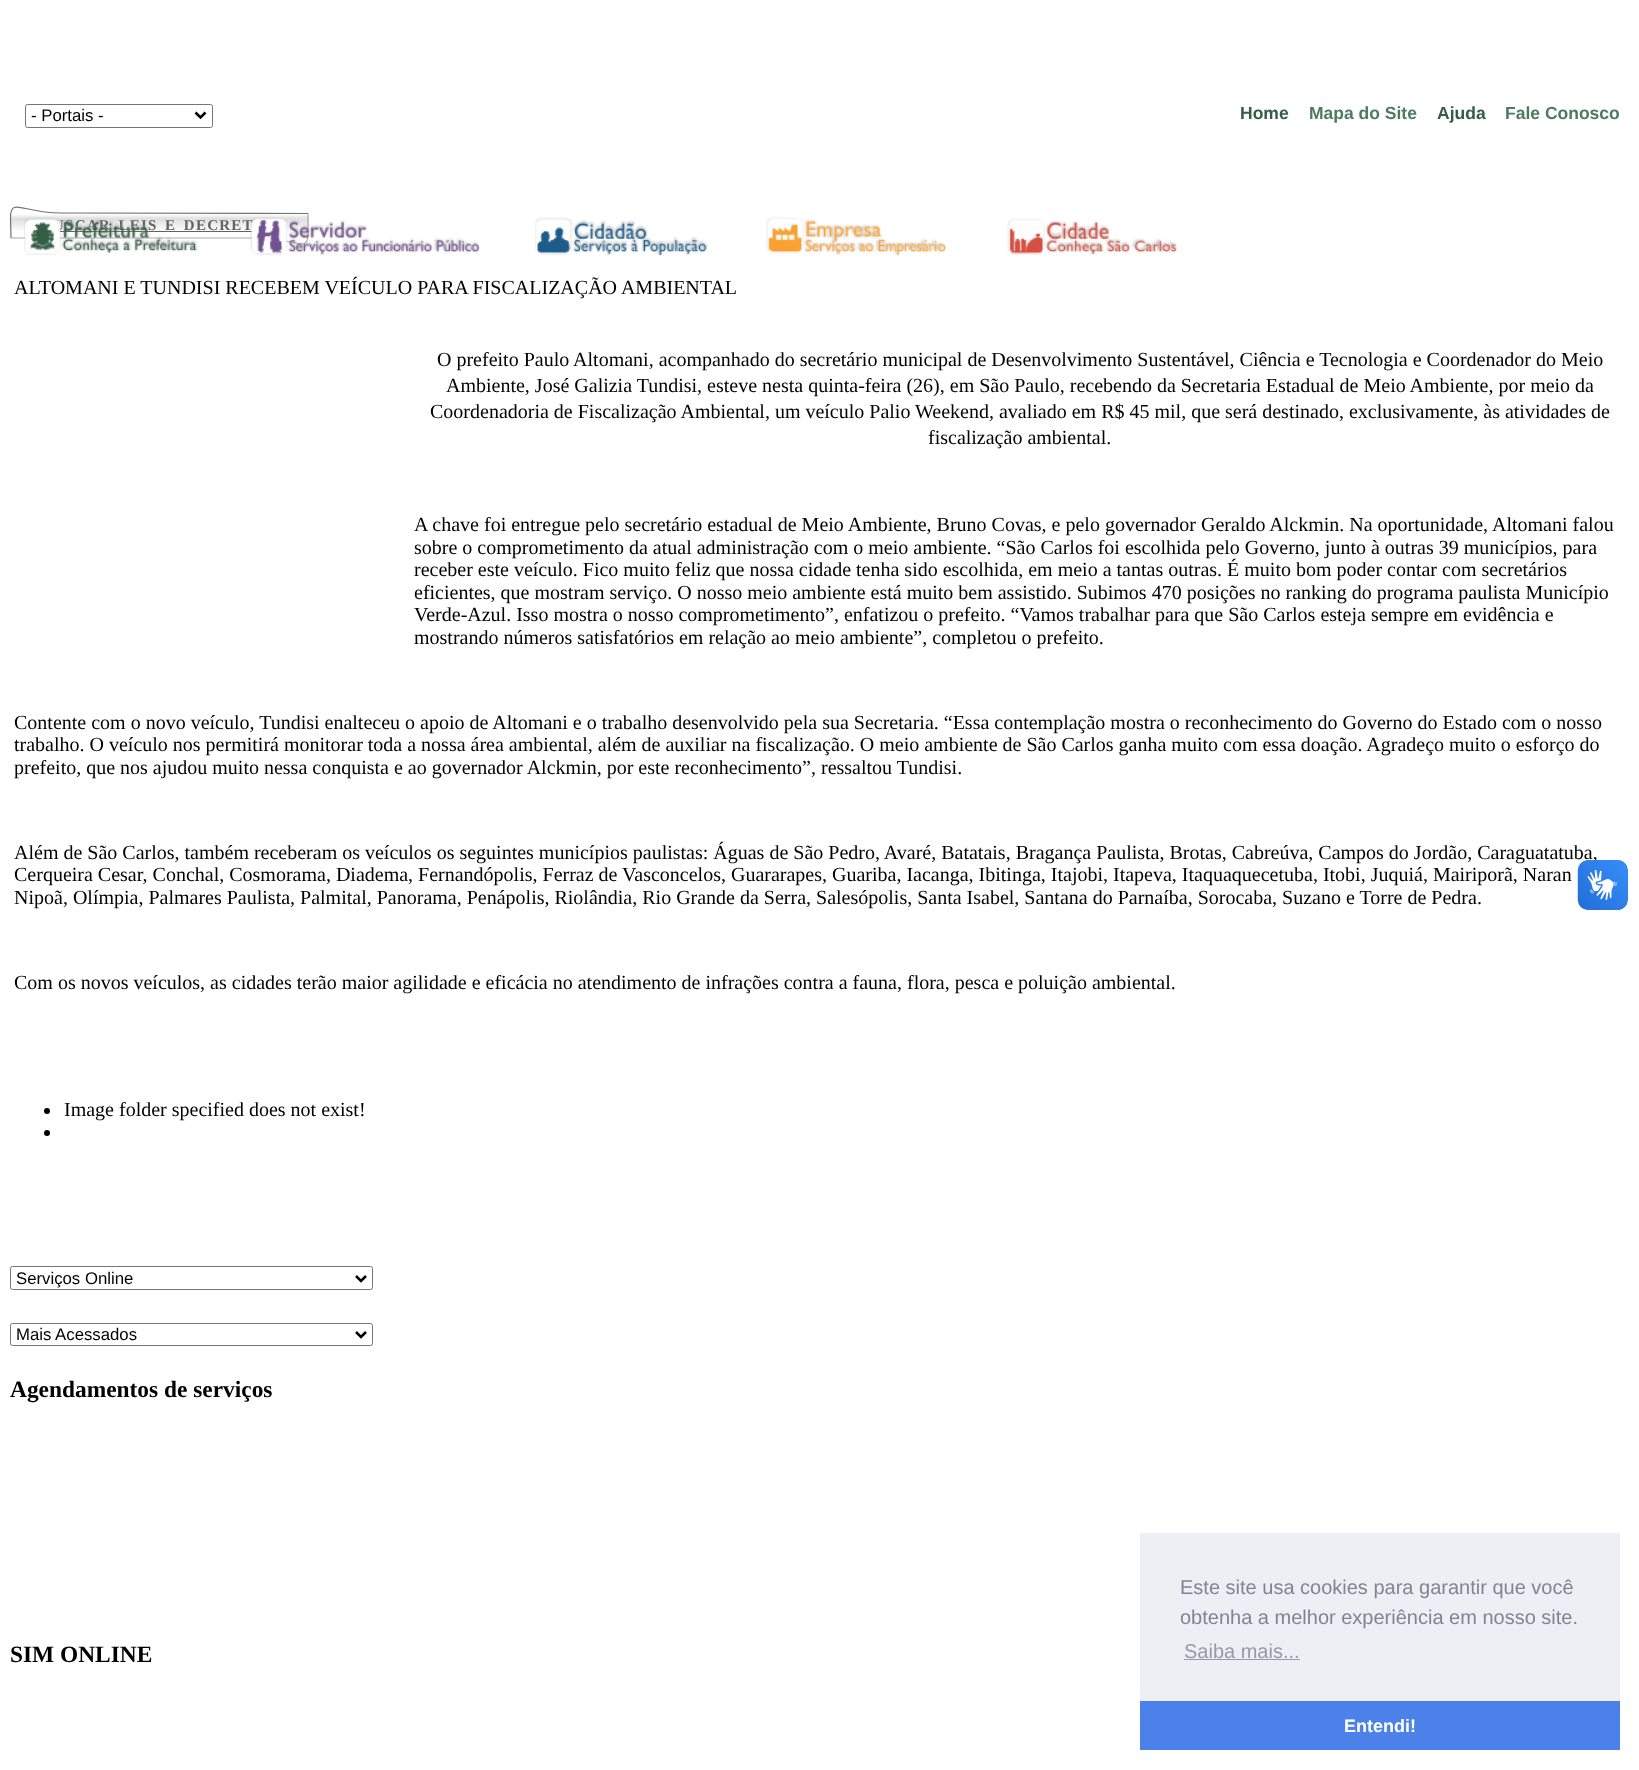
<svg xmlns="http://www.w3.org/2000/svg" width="1639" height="1770">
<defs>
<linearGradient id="g1" gradientUnits="userSpaceOnUse" x1="159" y1="214" x2="159" y2="238"><stop offset="0" stop-color="#fff"/><stop offset="0.2" stop-color="#dedede"/><stop offset="0.75" stop-color="#fff"/></linearGradient>
<linearGradient id="g2" gradientUnits="userSpaceOnUse" x1="159" y1="238" x2="159" y2="261"><stop offset="0" stop-color="#fff"/><stop offset="0.2" stop-color="#dedede"/><stop offset="0.75" stop-color="#fff"/></linearGradient>
</defs>
<rect width="100%" height="100%" fill="#fff"/>
<rect x="25.5" y="104.5" width="187" height="23" rx="2" fill="none" stroke="#767676"/>
<path d="M195.5 112.5l5 5l5-5" fill="none" stroke="#000" stroke-width="2.5"/>
<text x="31" y="121" style="font-family:Liberation Sans;font-size:16.75px;fill:#000">- Portais -</text>
<text x="1240" y="119" style="font-family:Liberation Sans;font-size:17.5px;font-weight:bold;fill:#335d44">Home</text>
<text x="1309" y="119" style="font-family:Liberation Sans;font-size:17.5px;font-weight:bold;fill:#4b7c5f">Mapa do Site</text>
<text x="1437" y="119" style="font-family:Liberation Sans;font-size:17.5px;font-weight:bold;fill:#335d44">Ajuda</text>
<text x="1505" y="119" style="font-family:Liberation Sans;font-size:17.5px;font-weight:bold;fill:#4b7c5f">Fale Conosco</text>
<rect x="10" y="214" width="299" height="17" fill="url(#g1)"/>
<path d="M10 238h299c0 .5-.5 1-1 1h-297c-.5 0-1-.5-1-1z" fill="url(#g2)"/>
<path d="M308 213.5v20c0 20.5-12 4.5-50 4.5h-247" fill="none" stroke="#adadad" stroke-width="1.2"/>
<path d="M11 238l-.5-20.5c0-20.5 12-4.5 50-4.5l247.5 .5" fill="none" stroke="#737373" stroke-width="1.2"/>
<text x="53" y="230" word-spacing="2.5" style="font-family:Liberation Serif;font-size:15px;font-weight:bold;letter-spacing:1.25px;fill:#636363">USCAR LEIS E DECRET</text>
<rect x="58" y="231" width="195" height="1" fill="#636363"/>
<image x="24" y="217" width="174" height="38" href="media/1.png"/>
<image x="250" y="217" width="230" height="39" href="media/2.png"/>
<image x="535" y="217" width="173" height="39" href="media/3.png"/>
<image x="766" y="217" width="181" height="39" href="media/4.png"/>
<image x="1007" y="218" width="170" height="37" href="media/5.png"/>
<text x="14" y="294" style="font-family:Liberation Serif;font-size:20px;fill:#000">ALTOMANI E TUNDISI RECEBEM VEÍCULO PARA FISCALIZAÇÃO AMBIENTAL</text>
<text x="437" y="366" style="font-family:Liberation Serif;font-size:20px;fill:#000">O prefeito Paulo Altomani, acompanhado do secretário municipal de Desenvolvimento Sustentável, Ciência e Tecnologia e Coordenador do Meio</text>
<text x="446" y="392" style="font-family:Liberation Serif;font-size:20px;fill:#000">Ambiente, José Galizia Tundisi, esteve nesta quinta-feira (26), em São Paulo, recebendo da Secretaria Estadual de Meio Ambiente, por meio da</text>
<text x="430" y="418" style="font-family:Liberation Serif;font-size:20px;fill:#000">Coordenadoria de Fiscalização Ambiental, um veículo Palio Weekend, avaliado em R$ 45 mil, que será destinado, exclusivamente, às atividades de</text>
<text x="928" y="444" style="font-family:Liberation Serif;font-size:20px;fill:#000">fiscalização ambiental.</text>
<text x="414" y="531" style="font-family:Liberation Serif;font-size:20px;fill:#000">A chave foi entregue pelo secretário estadual de Meio Ambiente, Bruno Covas, e pelo governador Geraldo Alckmin. Na oportunidade, Altomani falou</text>
<text x="414" y="554" style="font-family:Liberation Serif;font-size:20px;fill:#000">sobre o comprometimento da atual administração com o meio ambiente. “São Carlos foi escolhida pelo Governo, junto à outras 39 municípios, para</text>
<text x="414" y="576" style="font-family:Liberation Serif;font-size:20px;fill:#000">receber este veículo. Fico muito feliz que nossa cidade tenha sido escolhida, em meio a tantas outras. É muito bom poder contar com secretários</text>
<text x="414" y="599" style="font-family:Liberation Serif;font-size:20px;fill:#000">eficientes, que mostram serviço. O nosso meio ambiente está muito bem assistido. Subimos 470 posições no ranking do programa paulista Município</text>
<text x="414" y="621" style="font-family:Liberation Serif;font-size:20px;fill:#000">Verde-Azul. Isso mostra o nosso comprometimento”, enfatizou o prefeito. “Vamos trabalhar para que São Carlos esteja sempre em evidência e</text>
<text x="414" y="644" style="font-family:Liberation Serif;font-size:20px;fill:#000">mostrando números satisfatórios em relação ao meio ambiente”, completou o prefeito.</text>
<text x="14" y="729" style="font-family:Liberation Serif;font-size:20px;fill:#000">Contente com o novo veículo, Tundisi enalteceu o apoio de Altomani e o trabalho desenvolvido pela sua Secretaria. “Essa contemplação mostra o reconhecimento do Governo do Estado com o nosso</text>
<text x="14" y="751" style="font-family:Liberation Serif;font-size:20px;fill:#000">trabalho. O veículo nos permitirá monitorar toda a nossa área ambiental, além de auxiliar na fiscalização. O meio ambiente de São Carlos ganha muito com essa doação. Agradeço muito o esforço do</text>
<text x="14" y="774" style="font-family:Liberation Serif;font-size:20px;fill:#000">prefeito, que nos ajudou muito nessa conquista e ao governador Alckmin, por este reconhecimento”, ressaltou Tundisi.</text>
<text x="14" y="859" style="font-family:Liberation Serif;font-size:20px;fill:#000">Além de São Carlos, também receberam os veículos os seguintes municípios paulistas: Águas de São Pedro, Avaré, Batatais, Bragança Paulista, Brotas, Cabreúva, Campos do Jordão, Caraguatatuba,</text>
<text x="14" y="881" style="font-family:Liberation Serif;font-size:20px;fill:#000">Cerqueira Cesar, Conchal, Cosmorama, Diadema, Fernandópolis, Ferraz de Vasconcelos, Guararapes, Guariba, Iacanga, Ibitinga, Itajobi, Itapeva, Itaquaquecetuba, Itobi, Juquiá, Mairiporã, Naran</text>
<text x="14" y="904" style="font-family:Liberation Serif;font-size:20px;fill:#000">Nipoã, Olímpia, Palmares Paulista, Palmital, Panorama, Penápolis, Riolândia, Rio Grande da Serra, Salesópolis, Santa Isabel, Santana do Parnaíba, Sorocaba, Suzano e Torre de Pedra.</text>
<text x="14" y="989" style="font-family:Liberation Serif;font-size:20px;fill:#000">Com os novos veículos, as cidades terão maior agilidade e eficácia no atendimento de infrações contra a fauna, flora, pesca e poluição ambiental.</text>
<circle cx="47" cy="1111" r="3" fill="#000"/>
<text x="64" y="1116" style="font-family:Liberation Serif;font-size:20px;fill:#000">Image folder specified does not exist!</text>
<circle cx="47" cy="1133" r="3" fill="#000"/>
<rect x="10.5" y="1266.5" width="362" height="23" rx="2" fill="none" stroke="#767676"/>
<path d="M356 1276l5 5l5-5" fill="none" stroke="#000" stroke-width="2.5"/>
<text x="16" y="1284" style="font-family:Liberation Sans;font-size:16.75px;fill:#000">Serviços Online</text>
<rect x="10.5" y="1323.5" width="362" height="22" rx="2" fill="none" stroke="#767676"/>
<path d="M356 1332l5 5l5-5" fill="none" stroke="#000" stroke-width="2.5"/>
<text x="16" y="1340" style="font-family:Liberation Sans;font-size:16.75px;fill:#000">Mais Acessados</text>
<text x="10" y="1397" style="font-family:Liberation Serif;font-size:23.4px;font-weight:bold;fill:#000">Agendamentos de serviços</text>
<text x="10" y="1662" style="font-family:Liberation Serif;font-size:23.4px;font-weight:bold;fill:#000">SIM ONLINE</text>
<image x="1577" y="860" width="51" height="50" href="media/6.png"/>
<image x="1578" y="860" width="50" height="50" href="media/7.png"/>
<rect x="1140" y="1533" width="480" height="168" fill="#edeff5"/>
<text x="1180" y="1594" style="font-family:Liberation Sans;font-size:20px;fill:#838391">Este site usa cookies para garantir que você</text>
<text x="1180" y="1624" style="font-family:Liberation Sans;font-size:20px;fill:#838391">obtenha a melhor experiência em nosso site.</text>
<text x="1184" y="1658" style="font-family:Liberation Sans;font-size:20px;fill:#9899a5">Saiba mais...</text>
<rect x="1184" y="1659" width="116" height="1" fill="#9899a5"/>
<rect x="1140" y="1701" width="480" height="49" fill="#4b81e8"/>
<text x="1344" y="1732" style="font-family:Liberation Sans;font-size:18px;font-weight:bold;fill:#fff">Entendi!</text>
</svg>
